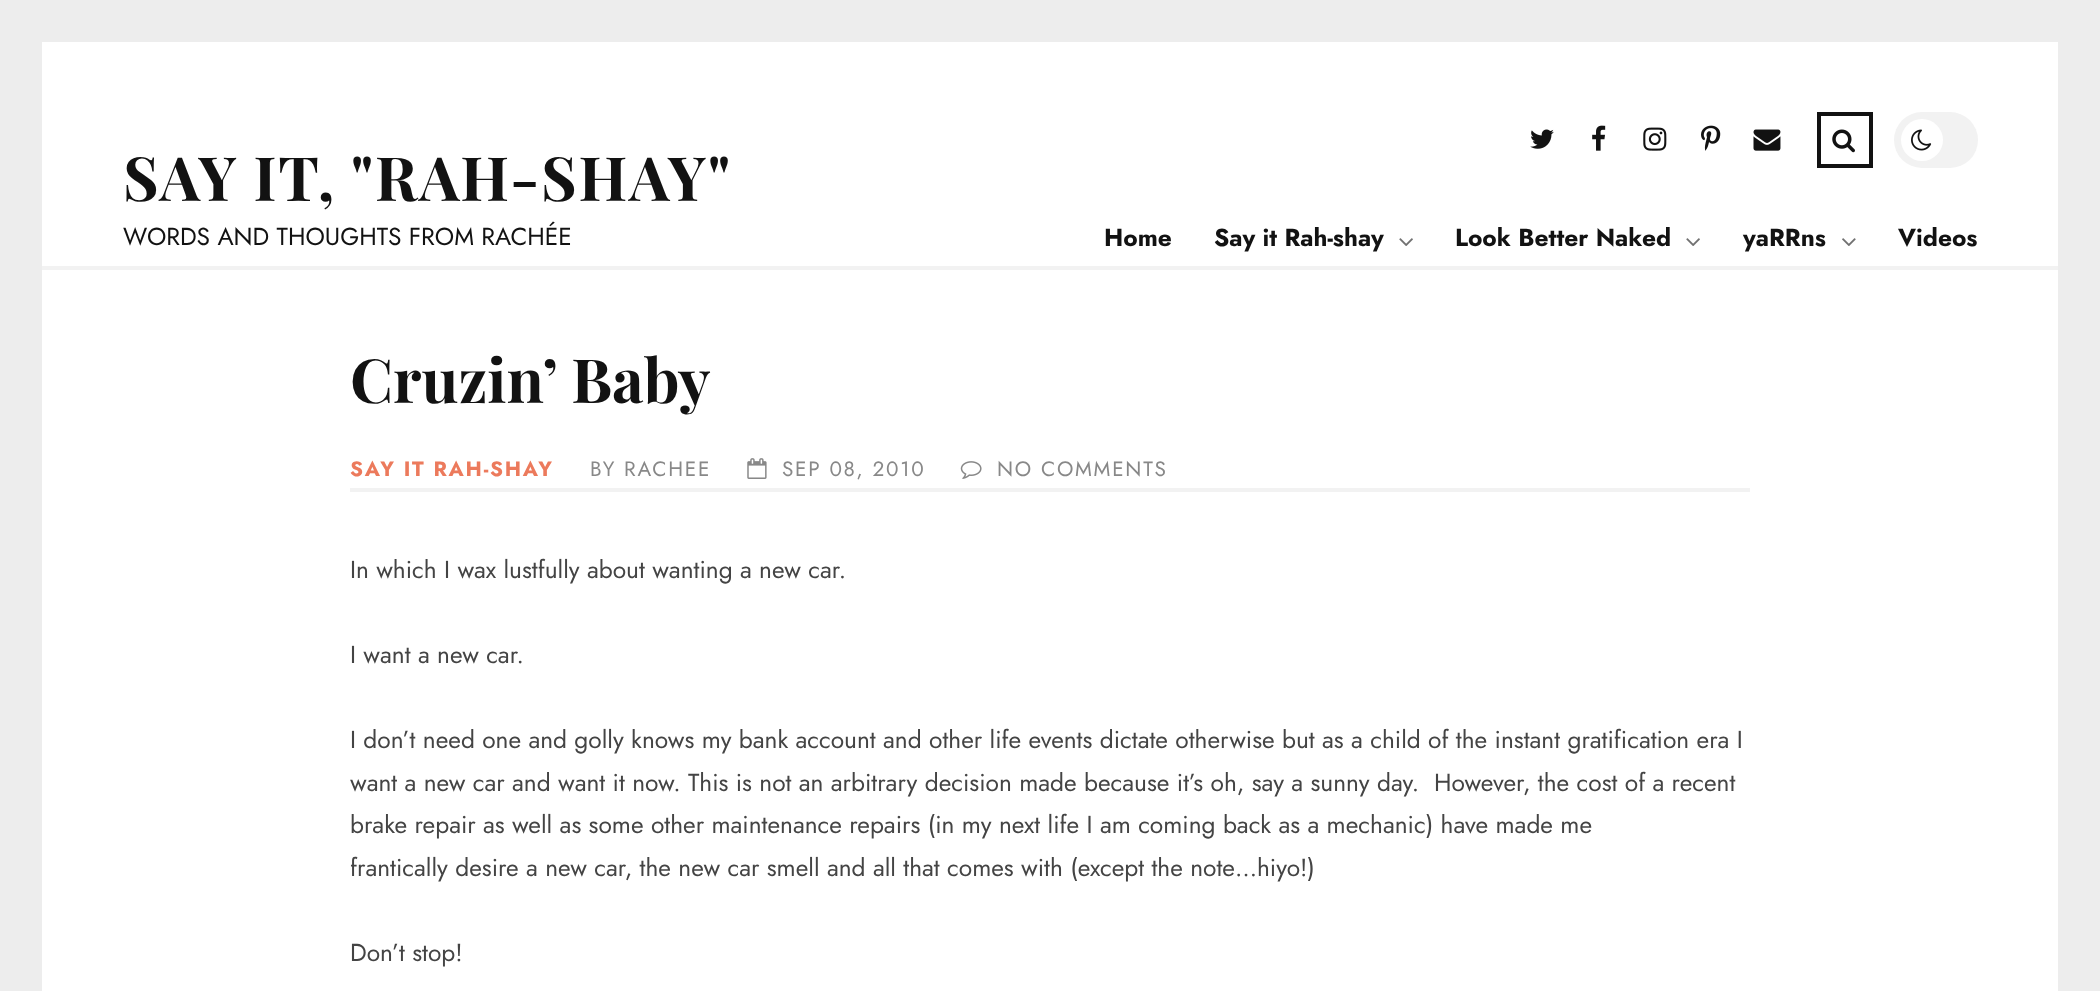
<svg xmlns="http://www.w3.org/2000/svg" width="2100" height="991">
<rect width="100%" height="100%" fill="#ededed"/>
<rect x="42" y="42" width="2016" height="949" fill="#fff"/>
<rect x="42" y="266" width="2016" height="4" fill="#f2f2f2"/>
<text x="123" y="201" style="font-family:Playfair Display;font-size:61px;font-weight:bold;letter-spacing:1.75px;fill:#121212">SAY IT, "RAH-SHAY"</text>
<text x="123" y="245" style="font-family:Jost;font-size:24.5px;fill:#121212">WORDS AND THOUGHTS FROM RACHÉE</text>
<image x="1530" y="129" width="24" height="20" href="media/1.png"/>
<image x="1592" y="125" width="14" height="26" href="media/2.png"/>
<image x="1643" y="127" width="24" height="24" href="media/3.png"/>
<image x="1701" y="125" width="20" height="26" href="media/4.png"/>
<image x="1753" y="129" width="28" height="22" href="media/5.png"/>
<rect x="1819" y="114" width="52" height="52" fill="none" stroke="#121212" stroke-width="4"/>
<image x="1832" y="129" width="23" height="24" href="media/6.png"/>
<rect x="1894" y="112" width="84" height="56" rx="28" fill="#f2f2f2"/>
<circle cx="1922" cy="140" r="21" fill="#fff"/>
<image x="1911" y="129" width="21" height="22" href="media/7.png"/>
<text x="1104" y="246" style="font-family:Jost;font-size:24.5px;font-weight:bold;fill:#121212">Home</text>
<text x="1214" y="246" style="font-family:Jost;font-size:24.5px;font-weight:bold;fill:#121212">Say it Rah-shay</text>
<image x="1399" y="238" width="14" height="8" href="media/8.png"/>
<text x="1455" y="246" style="font-family:Jost;font-size:24.5px;font-weight:bold;fill:#121212">Look Better Naked</text>
<image x="1686" y="238" width="14" height="8" href="media/8.png"/>
<text x="1743" y="246" style="font-family:Jost;font-size:24.5px;font-weight:bold;fill:#121212">yaRRns</text>
<image x="1842" y="238" width="14" height="8" href="media/9.png"/>
<text x="1898" y="246" style="font-family:Jost;font-size:24.5px;font-weight:bold;fill:#121212">Videos</text>
<rect x="350" y="488" width="1400" height="4" fill="#f2f2f2"/>
<text x="350" y="403" style="font-family:Playfair Display;font-size:61px;font-weight:bold;fill:#121212">Cruzin’ Baby</text>
<text x="350" y="476" style="font-family:Jost;font-size:20.75px;font-weight:bold;letter-spacing:1.75px;fill:#ec7a5c">SAY IT RAH-SHAY</text>
<text x="590" y="476" style="font-family:Jost;font-size:20.75px;letter-spacing:1.75px;fill:#888">BY RACHEE</text>
<image x="747" y="458" width="20" height="21" href="media/10.png"/>
<text x="782" y="476" style="font-family:Jost;font-size:20.75px;letter-spacing:1.75px;fill:#888">SEP 08, 2010</text>
<image x="960" y="461" width="22" height="18" href="media/11.png"/>
<text x="997" y="476" style="font-family:Jost;font-size:20.75px;letter-spacing:1.75px;fill:#888">NO COMMENTS</text>
<text x="350" y="578" style="font-family:Jost;font-size:24.5px;fill:#444">In which I wax lustfully about wanting a new car.</text>
<text x="350" y="663" style="font-family:Jost;font-size:24.5px;fill:#444">I want a new car.</text>
<text x="350" y="748" style="font-family:Jost;font-size:24.5px;fill:#444">I don’t need one and golly knows my bank account and other life events dictate otherwise but as a child of the instant gratification era I</text>
<text x="350" y="791" style="font-family:Jost;font-size:24.5px;fill:#444" xml:space="preserve">want a new car and want it now. This is not an arbitrary decision made because it’s oh, say a sunny day.  However, the cost of a recent</text>
<text x="350" y="833" style="font-family:Jost;font-size:24.5px;fill:#444">brake repair as well as some other maintenance repairs (in my next life I am coming back as a mechanic) have made me</text>
<text x="350" y="876" style="font-family:Jost;font-size:24.5px;fill:#444">frantically desire a new car, the new car smell and all that comes with (except the note…hiyo!)</text>
<text x="350" y="961" style="font-family:Jost;font-size:24.5px;fill:#444">Don’t stop!</text>
</svg>
